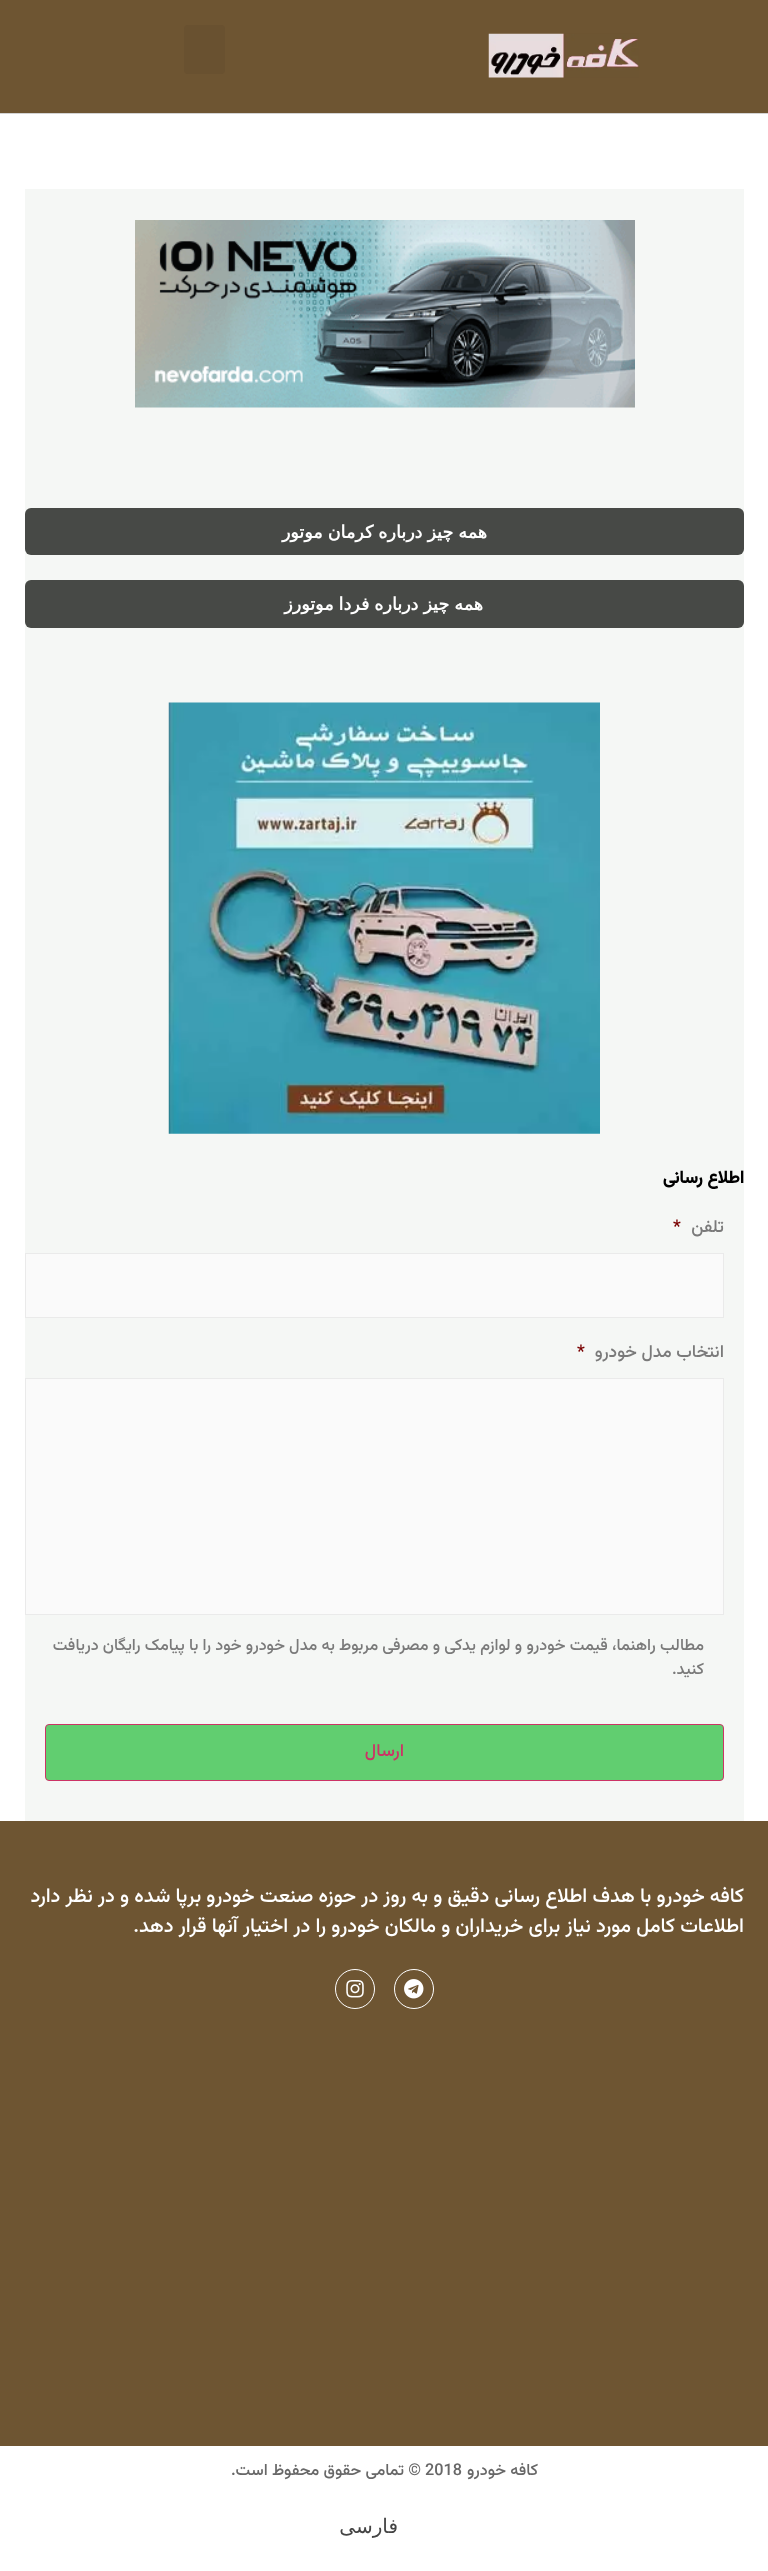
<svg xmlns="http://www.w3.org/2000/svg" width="768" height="2571">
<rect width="100%" height="100%" fill="#fff"/>
<rect width="768" height="113" fill="#6e5532"/>
<rect y="113" width="768" height="1" fill="#d3d3d3"/>
<image x="488" y="33" width="151" height="45" href="media/1.png"/>
<rect x="184" y="25" width="41" height="49" rx="4" fill="#695130"/>
<rect x="25" y="189" width="719" height="1632" fill="#f5f7f5"/>
<image x="135" y="220" width="500" height="188" href="media/2.png"/>
<rect x="25" y="508" width="719" height="47" rx="6" fill="#474946"/>
<text x="487" y="538" word-spacing="-0.5" style="font-family:DejaVu Sans;font-size:17.5px;font-weight:bold;direction:rtl;fill:#fff">همه چیز درباره کرمان موتور</text>
<rect x="25" y="580" width="719" height="48" rx="6" fill="#474946"/>
<text x="483" y="610" word-spacing="-0.5" style="font-family:DejaVu Sans;font-size:17.5px;font-weight:bold;direction:rtl;fill:#fff">همه چیز درباره فردا موتورز</text>
<image x="168" y="702" width="432" height="432" href="media/3.png"/>
<text x="744" y="1183" style="font-family:Vazirmatn;font-size:17.5px;font-weight:bold;direction:rtl;fill:#000">اطلاع رسانی</text>
<text x="724" y="1232" style="font-family:Vazirmatn;font-size:17.5px;font-weight:500;direction:rtl;fill:#7a7a7a">تلفن</text>
<text x="673" y="1232" style="font-family:Vazirmatn;font-size:17.5px;font-weight:500;fill:#790000">*</text>
<rect x="25.5" y="1253.5" width="698" height="64" fill="#fafafa" stroke="#eaeaea"/>
<text x="724" y="1357" style="font-family:Vazirmatn;font-size:17.5px;font-weight:500;direction:rtl;fill:#7a7a7a">انتخاب مدل خودرو</text>
<text x="577" y="1357" style="font-family:Vazirmatn;font-size:17.5px;font-weight:500;fill:#790000">*</text>
<rect x="25.5" y="1378.5" width="698" height="236" fill="#fafafa" stroke="#eaeaea"/>
<text x="704" y="1650" style="font-family:Vazirmatn;font-size:16.25px;font-weight:500;direction:rtl;fill:#7a7a7a">مطالب راهنما، قیمت خودرو و لوازم یدکی و مصرفی مربوط به مدل خودرو خود را با پیامک رایگان دریافت</text>
<text x="704" y="1674" style="font-family:Vazirmatn;font-size:16.25px;font-weight:500;direction:rtl;fill:#7a7a7a">کنید.</text>
<rect x="45.5" y="1724.5" width="678" height="56" rx="3.5" fill="#61ce70" stroke="#c36"/>
<text x="404" y="1756" style="font-family:Vazirmatn;font-size:17.5px;font-weight:500;direction:rtl;fill:#c36">ارسال</text>
<rect y="1821" width="768" height="625" fill="#6e5532"/>
<text x="744" y="1902" style="font-family:Vazirmatn;font-size:20px;font-weight:500;direction:rtl;fill:#fff">کافه خودرو با هدف اطلاع رسانی دقیق و به روز در حوزه صنعت خودرو برپا شده و در نظر دارد</text>
<text x="744" y="1932" style="font-family:Vazirmatn;font-size:20px;font-weight:500;direction:rtl;fill:#fff">اطلاعات کامل مورد نیاز برای خریداران و مالکان خودرو را در اختیار آنها قرار دهد.</text>
<circle cx="414" cy="1989" r="19.5" fill="none" stroke="#fff"/>
<image x="404" y="1979" width="20" height="20" href="media/4.png"/>
<circle cx="355" cy="1989" r="19.5" fill="none" stroke="#fff"/>
<image x="346" y="1980" width="18" height="18" href="media/5.png"/>
<text x="538" y="2475" style="font-family:Vazirmatn;font-size:16.25px;font-weight:500;direction:rtl;fill:#686868">کافه خودرو</text>
<text x="425" y="2475" style="font-family:Vazirmatn;font-size:16.25px;font-weight:500;fill:#686868">2018</text>
<text x="421" y="2475" style="font-family:Vazirmatn;font-size:16.25px;font-weight:500;direction:rtl;fill:#686868">© تمامی حقوق محفوظ است.</text>
<text x="398" y="2533" style="font-family:DejaVu Sans;font-size:20px;direction:rtl;fill:#444">فارسی</text>
</svg>
